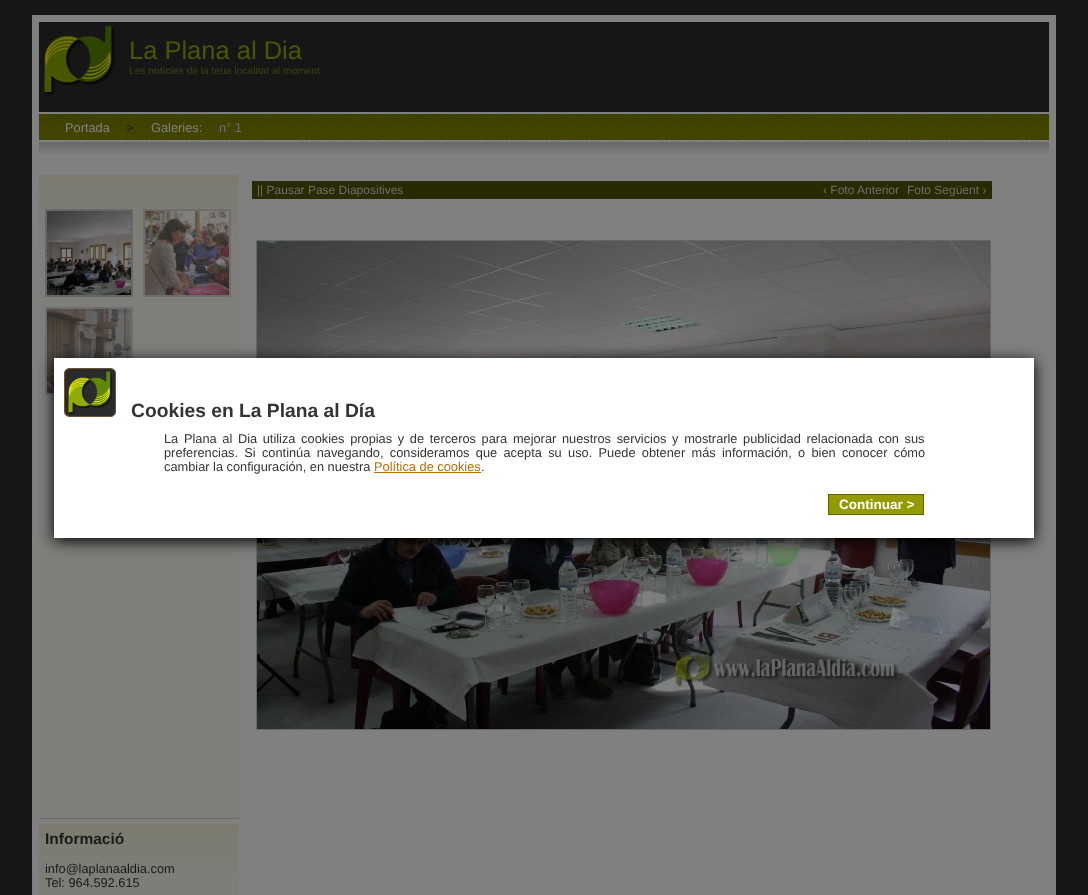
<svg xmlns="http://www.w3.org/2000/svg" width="1088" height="895">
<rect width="100%" height="100%" fill="#161616"/>
<rect x="32" y="15" width="1024" height="880" fill="#808080"/>
<rect x="39" y="22" width="1010" height="90" fill="#161616"/>
<image x="44" y="25" width="72" height="71" href="media/1.png"/>
<text x="129" y="59" style="font-family:Liberation Sans;font-size:25.5px;fill:#4c5600">La Plana al Dia</text>
<text x="129" y="74" style="font-family:Liberation Sans;font-size:10.25px;fill:#364510">Les notícies de la teua localitat al moment</text>
<image x="39" y="114" width="1010" height="26" href="media/2.png"/>
<text x="65" y="132" style="font-family:Liberation Sans;font-size:12.8px;fill:#808080">Portada</text>
<text x="126" y="132" style="font-family:Liberation Sans;font-size:12.8px;fill:#1a1a1a">&gt;</text>
<text x="151" y="132" style="font-family:Liberation Sans;font-size:12.8px;fill:#808080">Galeries:</text>
<text x="219" y="132" style="font-family:Liberation Sans;font-size:12.8px;fill:#6f6f6f">n° 1</text>
<image x="39" y="142" width="1010" height="13" href="media/3.png"/>
<rect x="252" y="181" width="740" height="18" fill="#282a00"/>
<text x="257" y="194" style="font-family:Liberation Sans;font-size:12px;fill:#6f6f6f">|| Pausar Pase Diapositives</text>
<text x="823" y="194" style="font-family:Liberation Sans;font-size:12px;fill:#6f6f6f">‹ Foto Anterior</text>
<text x="907" y="194" style="font-family:Liberation Sans;font-size:12px;fill:#6f6f6f">Foto Següent ›</text>
<rect x="256.5" y="240.5" width="734" height="489" fill="none" stroke="#666"/>
<image x="257" y="241" width="733" height="488" href="media/4.png"/>
<rect x="39" y="247" width="200" height="571" fill="#7f7e7b"/>
<image x="39" y="175" width="200" height="72" href="media/5.png"/>
<rect x="39" y="818" width="200" height="1" fill="#71695f"/>
<rect x="46" y="210" width="86" height="86" fill="none" stroke="#666" stroke-width="2"/>
<image x="47" y="211" width="84" height="84" href="media/6.png"/>
<rect x="144" y="210" width="86" height="86" fill="none" stroke="#666666ab" stroke-width="2"/>
<image x="145" y="211" width="84" height="84" href="media/7.png"/>
<rect x="46" y="308" width="86" height="86" fill="none" stroke="#6e6e6d" stroke-width="2"/>
<image x="47" y="309" width="84" height="84" href="media/8.png"/>
<image x="39" y="824" width="200" height="71" href="media/9.png"/>
<text x="45" y="844" style="font-family:Liberation Sans;font-size:15.5px;font-weight:bold;fill:#1a1a1a">Informació</text>
<text x="45" y="873" style="font-family:Liberation Sans;font-size:12.8px;fill:#1a1a1a">info@laplanaaldia.com</text>
<text x="45" y="887" style="font-family:Liberation Sans;font-size:12.8px;fill:#1a1a1a">Tel: 964.592.615</text>
<rect x="54" y="361" width="980" height="180" fill="#000" filter="blur(7.5px)"/>
<rect x="54" y="358" width="980" height="180" fill="#fff"/>
<rect x="64.5" y="368.5" width="51" height="48" rx="4.5" fill="none" stroke="#6f5230"/>
<image x="65" y="369" width="50" height="47" href="media/10.png"/>
<text x="131" y="417" style="font-family:Liberation Sans;font-size:19.25px;font-weight:bold;fill:#333">Cookies en La Plana al Día</text>
<text x="164" y="443" word-spacing="2.1" style="font-family:Liberation Sans;font-size:12.8px;fill:#333">La Plana al Dia utiliza cookies propias y de terceros para mejorar nuestros servicios y mostrarle publicidad relacionada con sus</text>
<text x="164" y="457" word-spacing="2.75" style="font-family:Liberation Sans;font-size:12.8px;fill:#333">preferencias. Si continúa navegando, consideramos que acepta su uso. Puede obtener más información, o bien conocer cómo</text>
<text x="164" y="471" style="font-family:Liberation Sans;font-size:12.8px;fill:#333">cambiar la configuración, en nuestra</text>
<text x="374" y="471" style="font-family:Liberation Sans;font-size:12.8px;fill:#b96d00">Política de cookies</text>
<rect x="374" y="472" width="107" height="1" fill="#b96d00"/>
<text x="481" y="471" style="font-family:Liberation Sans;font-size:12.8px;fill:#333">.</text>
<rect x="828.5" y="494.5" width="95" height="20" fill="#939b00" stroke="#5f6800"/>
<text x="839" y="509" style="font-family:Liberation Sans;font-size:13.5px;font-weight:bold;fill:#fff">Continuar &gt;</text>
</svg>
